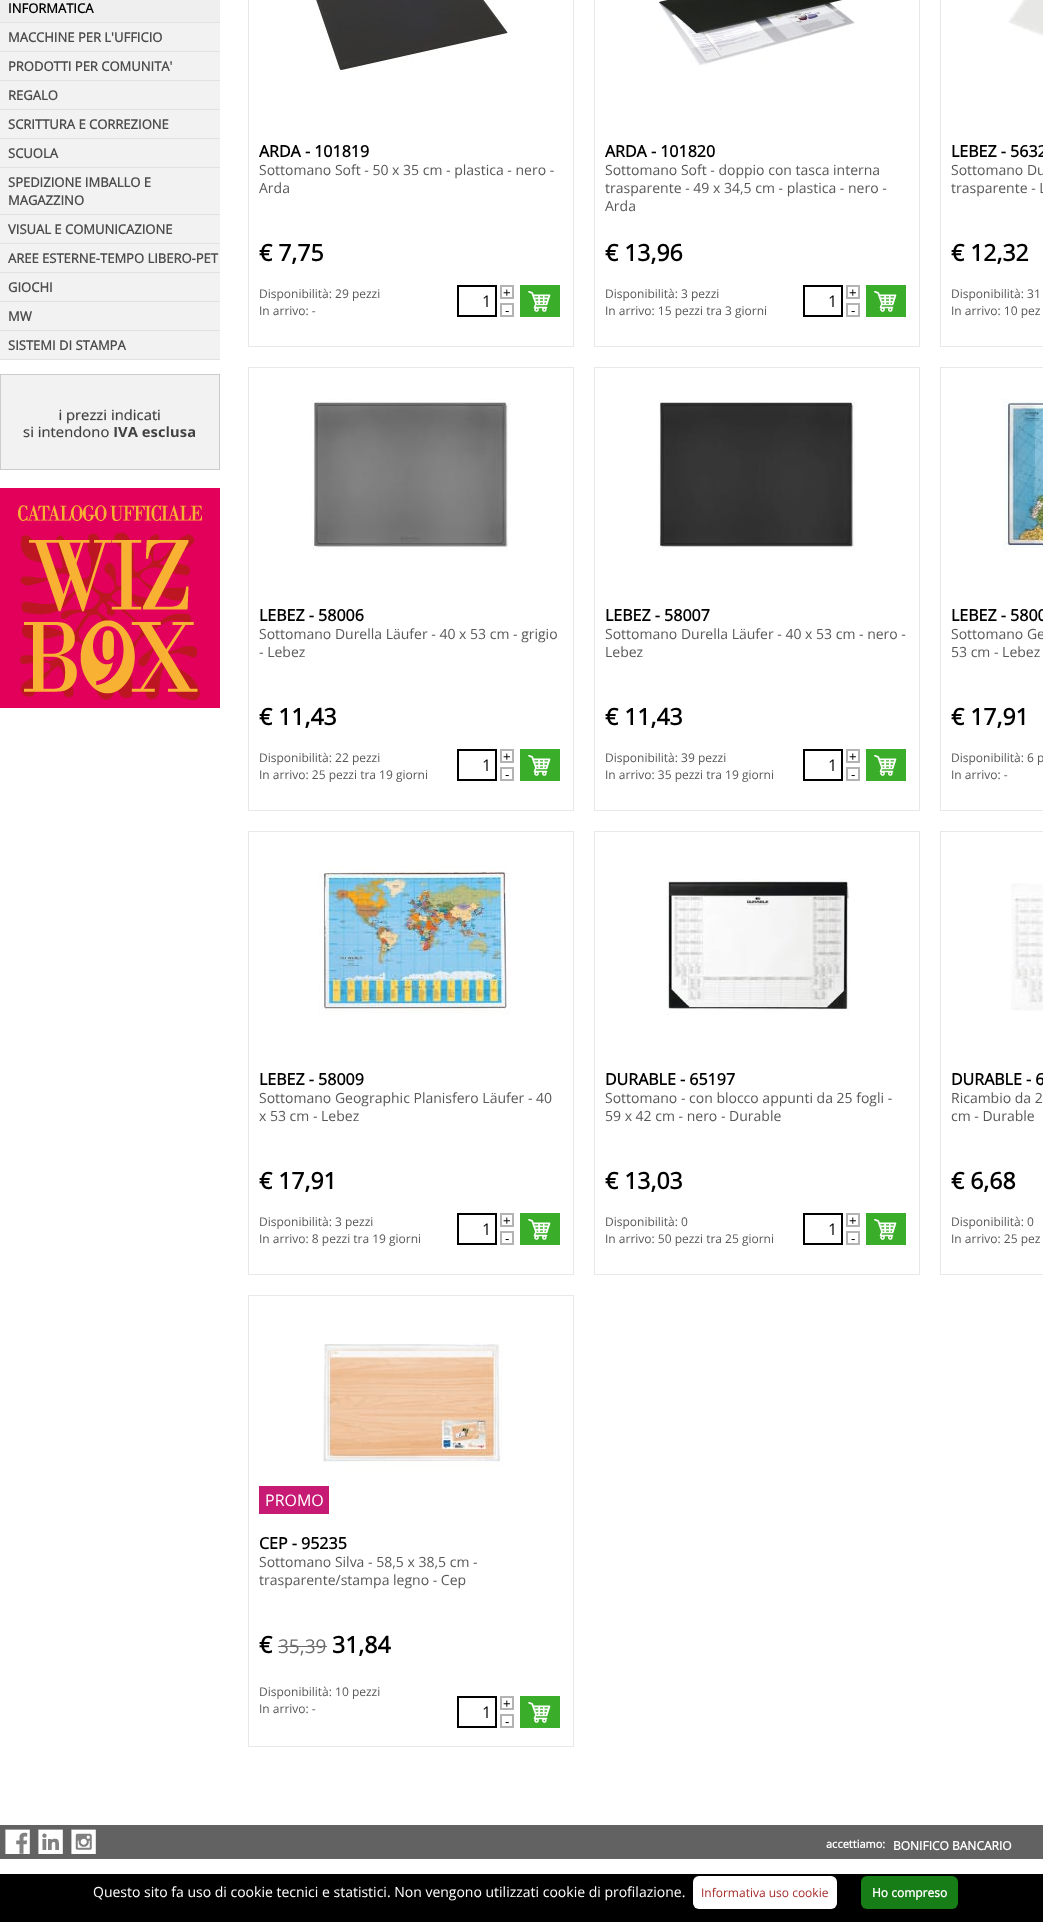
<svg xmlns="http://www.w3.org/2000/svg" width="1043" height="1922">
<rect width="100%" height="100%" fill="#fff"/>
<rect y="23" width="220" height="336" fill="#f2f2f2"/>
<rect width="220" height="22" fill="#efefef"/>
<rect y="22" width="220" height="1" fill="#e1e1e1"/>
<text x="8" y="13" style="font-family:Open Sans;font-size:13px;font-weight:bold;fill:#000">INFORMATICA</text>
<rect y="51" width="220" height="1" fill="#e1e1e1"/>
<text x="8" y="42" style="font-family:Open Sans;font-size:13px;font-weight:bold;fill:#4d4d4d">MACCHINE PER L'UFFICIO</text>
<rect y="80" width="220" height="1" fill="#e1e1e1"/>
<text x="8" y="71" style="font-family:Open Sans;font-size:13px;font-weight:bold;fill:#4d4d4d">PRODOTTI PER COMUNITA'</text>
<rect y="109" width="220" height="1" fill="#e1e1e1"/>
<text x="8" y="100" style="font-family:Open Sans;font-size:13px;font-weight:bold;fill:#4d4d4d">REGALO</text>
<rect y="138" width="220" height="1" fill="#e1e1e1"/>
<text x="8" y="129" style="font-family:Open Sans;font-size:13px;font-weight:bold;fill:#4d4d4d">SCRITTURA E CORREZIONE</text>
<rect y="167" width="220" height="1" fill="#e1e1e1"/>
<text x="8" y="158" style="font-family:Open Sans;font-size:13px;font-weight:bold;fill:#4d4d4d">SCUOLA</text>
<rect y="214" width="220" height="1" fill="#e1e1e1"/>
<text x="8" y="187" style="font-family:Open Sans;font-size:13px;font-weight:bold;fill:#4d4d4d">SPEDIZIONE IMBALLO E</text>
<text x="8" y="205" style="font-family:Open Sans;font-size:13px;font-weight:bold;fill:#4d4d4d">MAGAZZINO</text>
<rect y="243" width="220" height="1" fill="#e1e1e1"/>
<text x="8" y="234" style="font-family:Open Sans;font-size:13px;font-weight:bold;fill:#4d4d4d">VISUAL E COMUNICAZIONE</text>
<rect y="272" width="220" height="1" fill="#e1e1e1"/>
<text x="8" y="263" style="font-family:Open Sans;font-size:13px;font-weight:bold;fill:#4d4d4d">AREE ESTERNE-TEMPO LIBERO-PET</text>
<rect y="301" width="220" height="1" fill="#e1e1e1"/>
<text x="8" y="292" style="font-family:Open Sans;font-size:13px;font-weight:bold;fill:#4d4d4d">GIOCHI</text>
<rect y="330" width="220" height="1" fill="#e1e1e1"/>
<text x="8" y="321" style="font-family:Open Sans;font-size:13px;font-weight:bold;fill:#4d4d4d">MW</text>
<rect y="359" width="220" height="1" fill="#e1e1e1"/>
<text x="8" y="350" style="font-family:Open Sans;font-size:13px;font-weight:bold;fill:#4d4d4d">SISTEMI DI STAMPA</text>
<image x="0" y="374" width="220" height="96" href="media/1.png"/>
<image x="0" y="488" width="220" height="220" href="media/2.png"/>
<rect x="248.5" y="-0.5" width="325" height="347" fill="none" stroke="#e8e8e8"/>
<image x="316" y="0" width="194" height="70" href="media/3.png"/>
<text x="259" y="157" style="font-family:Open Sans;font-size:16px;font-weight:bold;fill:#000">ARDA - 101819</text>
<text x="259" y="175" style="font-family:Open Sans;font-size:14px;fill:#585858">Sottomano Soft - 50 x 35 cm - plastica - nero -</text>
<text x="259" y="193" style="font-family:Open Sans;font-size:14px;fill:#585858">Arda</text>
<text x="259" y="261" style="font-family:Open Sans;font-size:23px;font-weight:bold;fill:#000">€ 7,75</text>
<text x="259" y="298" style="font-family:Open Sans;font-size:12px;fill:#585858">Disponibilità: 29 pezzi</text>
<text x="259" y="315" style="font-family:Open Sans;font-size:12px;fill:#585858">In arrivo: -</text>
<rect x="501" y="286" width="12" height="12" fill="none" stroke="#b3b3b3" stroke-width="2"/>
<text x="503" y="297" style="font-family:Liberation Sans;font-size:13px;fill:#000">+</text>
<rect x="458" y="286" width="38" height="30" fill="none" stroke="#000" stroke-width="2"/>
<text x="482" y="307" style="font-family:Open Sans;font-size:16px;fill:#000">1</text>
<rect x="501" y="304" width="12" height="12" fill="none" stroke="#b3b3b3" stroke-width="2"/>
<text x="505" y="315" style="font-family:Liberation Sans;font-size:13px;fill:#000">-</text>
<image x="520" y="285" width="40" height="32" href="media/4.png"/>
<rect x="594.5" y="-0.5" width="325" height="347" fill="none" stroke="#e8e8e8"/>
<image x="659" y="0" width="196" height="66" href="media/5.png"/>
<text x="605" y="157" style="font-family:Open Sans;font-size:16px;font-weight:bold;fill:#000">ARDA - 101820</text>
<text x="605" y="175" style="font-family:Open Sans;font-size:14px;fill:#585858">Sottomano Soft - doppio con tasca interna</text>
<text x="605" y="193" style="font-family:Open Sans;font-size:14px;fill:#585858">trasparente - 49 x 34,5 cm - plastica - nero -</text>
<text x="605" y="211" style="font-family:Open Sans;font-size:14px;fill:#585858">Arda</text>
<text x="605" y="261" style="font-family:Open Sans;font-size:23px;font-weight:bold;fill:#000">€ 13,96</text>
<text x="605" y="298" style="font-family:Open Sans;font-size:12px;fill:#585858">Disponibilità: 3 pezzi</text>
<text x="605" y="315" style="font-family:Open Sans;font-size:12px;fill:#585858">In arrivo: 15 pezzi tra 3 giorni</text>
<rect x="847" y="286" width="12" height="12" fill="none" stroke="#b3b3b3" stroke-width="2"/>
<text x="849" y="297" style="font-family:Liberation Sans;font-size:13px;fill:#000">+</text>
<rect x="804" y="286" width="38" height="30" fill="none" stroke="#000" stroke-width="2"/>
<text x="828" y="307" style="font-family:Open Sans;font-size:16px;fill:#000">1</text>
<rect x="847" y="304" width="12" height="12" fill="none" stroke="#b3b3b3" stroke-width="2"/>
<text x="851" y="315" style="font-family:Liberation Sans;font-size:13px;fill:#000">-</text>
<image x="866" y="285" width="40" height="32" href="media/4.png"/>
<rect x="940.5" y="-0.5" width="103" height="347" fill="none" stroke="#e8e8e8"/>
<image x="1008" y="0" width="35" height="36" href="media/6.png"/>
<text x="951" y="157" style="font-family:Open Sans;font-size:16px;font-weight:bold;fill:#000">LEBEZ - 5632</text>
<text x="951" y="175" style="font-family:Open Sans;font-size:14px;fill:#585858">Sottomano Du</text>
<text x="951" y="193" style="font-family:Open Sans;font-size:14px;fill:#585858">trasparente - L</text>
<text x="951" y="261" style="font-family:Open Sans;font-size:23px;font-weight:bold;fill:#000">€ 12,32</text>
<text x="951" y="298" style="font-family:Open Sans;font-size:12px;fill:#585858">Disponibilità: 31</text>
<text x="951" y="315" style="font-family:Open Sans;font-size:12px;fill:#585858">In arrivo: 10 pez</text>
<rect x="248.5" y="367.5" width="325" height="443" fill="none" stroke="#e8e8e8"/>
<image x="311" y="399" width="200" height="152" href="media/7.png"/>
<text x="259" y="621" style="font-family:Open Sans;font-size:16px;font-weight:bold;fill:#000">LEBEZ - 58006</text>
<text x="259" y="639" style="font-family:Open Sans;font-size:14px;fill:#585858">Sottomano Durella Läufer - 40 x 53 cm - grigio</text>
<text x="259" y="657" style="font-family:Open Sans;font-size:14px;fill:#585858">- Lebez</text>
<text x="259" y="725" style="font-family:Open Sans;font-size:23px;font-weight:bold;fill:#000">€ 11,43</text>
<text x="259" y="762" style="font-family:Open Sans;font-size:12px;fill:#585858">Disponibilità: 22 pezzi</text>
<text x="259" y="779" style="font-family:Open Sans;font-size:12px;fill:#585858">In arrivo: 25 pezzi tra 19 giorni</text>
<rect x="501" y="750" width="12" height="12" fill="none" stroke="#b3b3b3" stroke-width="2"/>
<text x="503" y="761" style="font-family:Liberation Sans;font-size:13px;fill:#000">+</text>
<rect x="458" y="750" width="38" height="30" fill="none" stroke="#000" stroke-width="2"/>
<text x="482" y="771" style="font-family:Open Sans;font-size:16px;fill:#000">1</text>
<rect x="501" y="768" width="12" height="12" fill="none" stroke="#b3b3b3" stroke-width="2"/>
<text x="505" y="779" style="font-family:Liberation Sans;font-size:13px;fill:#000">-</text>
<image x="520" y="749" width="40" height="32" href="media/4.png"/>
<rect x="594.5" y="367.5" width="325" height="443" fill="none" stroke="#e8e8e8"/>
<image x="657" y="400" width="200" height="151" href="media/8.png"/>
<text x="605" y="621" style="font-family:Open Sans;font-size:16px;font-weight:bold;fill:#000">LEBEZ - 58007</text>
<text x="605" y="639" style="font-family:Open Sans;font-size:14px;fill:#585858">Sottomano Durella Läufer - 40 x 53 cm - nero -</text>
<text x="605" y="657" style="font-family:Open Sans;font-size:14px;fill:#585858">Lebez</text>
<text x="605" y="725" style="font-family:Open Sans;font-size:23px;font-weight:bold;fill:#000">€ 11,43</text>
<text x="605" y="762" style="font-family:Open Sans;font-size:12px;fill:#585858">Disponibilità: 39 pezzi</text>
<text x="605" y="779" style="font-family:Open Sans;font-size:12px;fill:#585858">In arrivo: 35 pezzi tra 19 giorni</text>
<rect x="847" y="750" width="12" height="12" fill="none" stroke="#b3b3b3" stroke-width="2"/>
<text x="849" y="761" style="font-family:Liberation Sans;font-size:13px;fill:#000">+</text>
<rect x="804" y="750" width="38" height="30" fill="none" stroke="#000" stroke-width="2"/>
<text x="828" y="771" style="font-family:Open Sans;font-size:16px;fill:#000">1</text>
<rect x="847" y="768" width="12" height="12" fill="none" stroke="#b3b3b3" stroke-width="2"/>
<text x="851" y="779" style="font-family:Liberation Sans;font-size:13px;fill:#000">-</text>
<image x="866" y="749" width="40" height="32" href="media/4.png"/>
<rect x="940.5" y="367.5" width="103" height="443" fill="none" stroke="#e8e8e8"/>
<image x="1003" y="399" width="40" height="155" href="media/9.png"/>
<text x="951" y="621" style="font-family:Open Sans;font-size:16px;font-weight:bold;fill:#000">LEBEZ - 5800</text>
<text x="951" y="639" style="font-family:Open Sans;font-size:14px;fill:#585858">Sottomano Ge</text>
<text x="951" y="657" style="font-family:Open Sans;font-size:14px;fill:#585858">53 cm - Lebez</text>
<text x="951" y="725" style="font-family:Open Sans;font-size:23px;font-weight:bold;fill:#000">€ 17,91</text>
<text x="951" y="762" style="font-family:Open Sans;font-size:12px;fill:#585858">Disponibilità: 6 p</text>
<text x="951" y="779" style="font-family:Open Sans;font-size:12px;fill:#585858">In arrivo: -</text>
<rect x="248.5" y="831.5" width="325" height="443" fill="none" stroke="#e8e8e8"/>
<image x="319" y="866" width="192" height="149" href="media/10.png"/>
<text x="259" y="1085" style="font-family:Open Sans;font-size:16px;font-weight:bold;fill:#000">LEBEZ - 58009</text>
<text x="259" y="1103" style="font-family:Open Sans;font-size:14px;fill:#585858">Sottomano Geographic Planisfero Läufer - 40</text>
<text x="259" y="1121" style="font-family:Open Sans;font-size:14px;fill:#585858">x 53 cm - Lebez</text>
<text x="259" y="1189" style="font-family:Open Sans;font-size:23px;font-weight:bold;fill:#000">€ 17,91</text>
<text x="259" y="1226" style="font-family:Open Sans;font-size:12px;fill:#585858">Disponibilità: 3 pezzi</text>
<text x="259" y="1243" style="font-family:Open Sans;font-size:12px;fill:#585858">In arrivo: 8 pezzi tra 19 giorni</text>
<rect x="501" y="1214" width="12" height="12" fill="none" stroke="#b3b3b3" stroke-width="2"/>
<text x="503" y="1225" style="font-family:Liberation Sans;font-size:13px;fill:#000">+</text>
<rect x="458" y="1214" width="38" height="30" fill="none" stroke="#000" stroke-width="2"/>
<text x="482" y="1235" style="font-family:Open Sans;font-size:16px;fill:#000">1</text>
<rect x="501" y="1232" width="12" height="12" fill="none" stroke="#b3b3b3" stroke-width="2"/>
<text x="505" y="1243" style="font-family:Liberation Sans;font-size:13px;fill:#000">-</text>
<image x="520" y="1213" width="40" height="32" href="media/4.png"/>
<rect x="594.5" y="831.5" width="325" height="443" fill="none" stroke="#e8e8e8"/>
<image x="665" y="879" width="184" height="136" href="media/11.png"/>
<text x="605" y="1085" style="font-family:Open Sans;font-size:16px;font-weight:bold;fill:#000">DURABLE - 65197</text>
<text x="605" y="1103" style="font-family:Open Sans;font-size:14px;fill:#585858">Sottomano - con blocco appunti da 25 fogli -</text>
<text x="605" y="1121" style="font-family:Open Sans;font-size:14px;fill:#585858">59 x 42 cm - nero - Durable</text>
<text x="605" y="1189" style="font-family:Open Sans;font-size:23px;font-weight:bold;fill:#000">€ 13,03</text>
<text x="605" y="1226" style="font-family:Open Sans;font-size:12px;fill:#585858">Disponibilità: 0</text>
<text x="605" y="1243" style="font-family:Open Sans;font-size:12px;fill:#585858">In arrivo: 50 pezzi tra 25 giorni</text>
<rect x="847" y="1214" width="12" height="12" fill="none" stroke="#b3b3b3" stroke-width="2"/>
<text x="849" y="1225" style="font-family:Liberation Sans;font-size:13px;fill:#000">+</text>
<rect x="804" y="1214" width="38" height="30" fill="none" stroke="#000" stroke-width="2"/>
<text x="828" y="1235" style="font-family:Open Sans;font-size:16px;fill:#000">1</text>
<rect x="847" y="1232" width="12" height="12" fill="none" stroke="#b3b3b3" stroke-width="2"/>
<text x="851" y="1243" style="font-family:Liberation Sans;font-size:13px;fill:#000">-</text>
<image x="866" y="1213" width="40" height="32" href="media/4.png"/>
<rect x="940.5" y="831.5" width="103" height="443" fill="none" stroke="#e8e8e8"/>
<image x="1011" y="883" width="32" height="128" href="media/12.png"/>
<text x="951" y="1085" style="font-family:Open Sans;font-size:16px;font-weight:bold;fill:#000">DURABLE - 6</text>
<text x="951" y="1103" style="font-family:Open Sans;font-size:14px;fill:#585858">Ricambio da 2</text>
<text x="951" y="1121" style="font-family:Open Sans;font-size:14px;fill:#585858">cm - Durable</text>
<text x="951" y="1189" style="font-family:Open Sans;font-size:23px;font-weight:bold;fill:#000">€ 6,68</text>
<text x="951" y="1226" style="font-family:Open Sans;font-size:12px;fill:#585858">Disponibilità: 0</text>
<text x="951" y="1243" style="font-family:Open Sans;font-size:12px;fill:#585858">In arrivo: 25 pez</text>
<rect x="248.5" y="1295.5" width="325" height="451" fill="none" stroke="#e8e8e8"/>
<rect x="259" y="1486" width="70" height="28" fill="#c71a74"/>
<text x="265" y="1506" style="font-family:Open Sans;font-size:16px;fill:#fff">PROMO</text>
<text x="259" y="1653" style="font-family:Open Sans;font-size:23px;font-weight:bold;fill:#000">€</text>
<text x="278" y="1653" style="font-family:Open Sans;font-size:19px;fill:#6d6d6d">35,39</text>
<rect x="278" y="1646" width="49" height="1" fill="#6d6d6d"/>
<text x="332" y="1653" style="font-family:Open Sans;font-size:23px;font-weight:bold;fill:#000">31,84</text>
<text x="259" y="1696" style="font-family:Open Sans;font-size:12px;fill:#585858">Disponibilità: 10 pezzi</text>
<text x="259" y="1713" style="font-family:Open Sans;font-size:12px;fill:#585858">In arrivo: -</text>
<rect x="501" y="1697" width="12" height="12" fill="none" stroke="#b3b3b3" stroke-width="2"/>
<text x="503" y="1708" style="font-family:Liberation Sans;font-size:13px;fill:#000">+</text>
<rect x="458" y="1697" width="38" height="30" fill="none" stroke="#000" stroke-width="2"/>
<text x="482" y="1718" style="font-family:Open Sans;font-size:16px;fill:#000">1</text>
<rect x="501" y="1715" width="12" height="12" fill="none" stroke="#b3b3b3" stroke-width="2"/>
<text x="505" y="1726" style="font-family:Liberation Sans;font-size:13px;fill:#000">-</text>
<image x="520" y="1696" width="40" height="32" href="media/4.png"/>
<image x="323" y="1343" width="180" height="124" href="media/13.png"/>
<text x="259" y="1549" style="font-family:Open Sans;font-size:16px;font-weight:bold;fill:#000">CEP - 95235</text>
<text x="259" y="1567" style="font-family:Open Sans;font-size:14px;fill:#585858">Sottomano Silva - 58,5 x 38,5 cm -</text>
<text x="259" y="1585" style="font-family:Open Sans;font-size:14px;fill:#585858">trasparente/stampa legno - Cep</text>
<rect y="1825" width="1043" height="34" fill="#626262"/>
<image x="5" y="1829" width="25" height="25" href="media/14.png"/>
<image x="38" y="1829" width="25" height="25" href="media/15.png"/>
<image x="71" y="1829" width="25" height="25" href="media/16.png"/>
<text x="826" y="1848" style="font-family:Open Sans;font-size:11px;font-weight:bold;fill:#fff">accettiamo:</text>
<text x="893" y="1850" style="font-family:Open Sans;font-size:12px;font-weight:bold;fill:#fff">BONIFICO BANCARIO</text>
<rect y="1874" width="1043" height="48" fill="#000"/>
<text x="93" y="1897" style="font-family:Open Sans;font-size:14px;fill:#fff">Questo sito fa uso di cookie tecnici e statistici. Non vengono utilizzati cookie di profilazione.</text>
<rect x="693" y="1876" width="144" height="33" rx="6" fill="#fff"/>
<text x="701" y="1897" style="font-family:Open Sans;font-size:12px;fill:#a52a2a">Informativa uso cookie</text>
<rect x="861" y="1876" width="97" height="33" rx="6" fill="#177d17"/>
<text x="872" y="1897" style="font-family:Open Sans;font-size:12px;font-weight:bold;fill:#fff">Ho compreso</text>
</svg>
